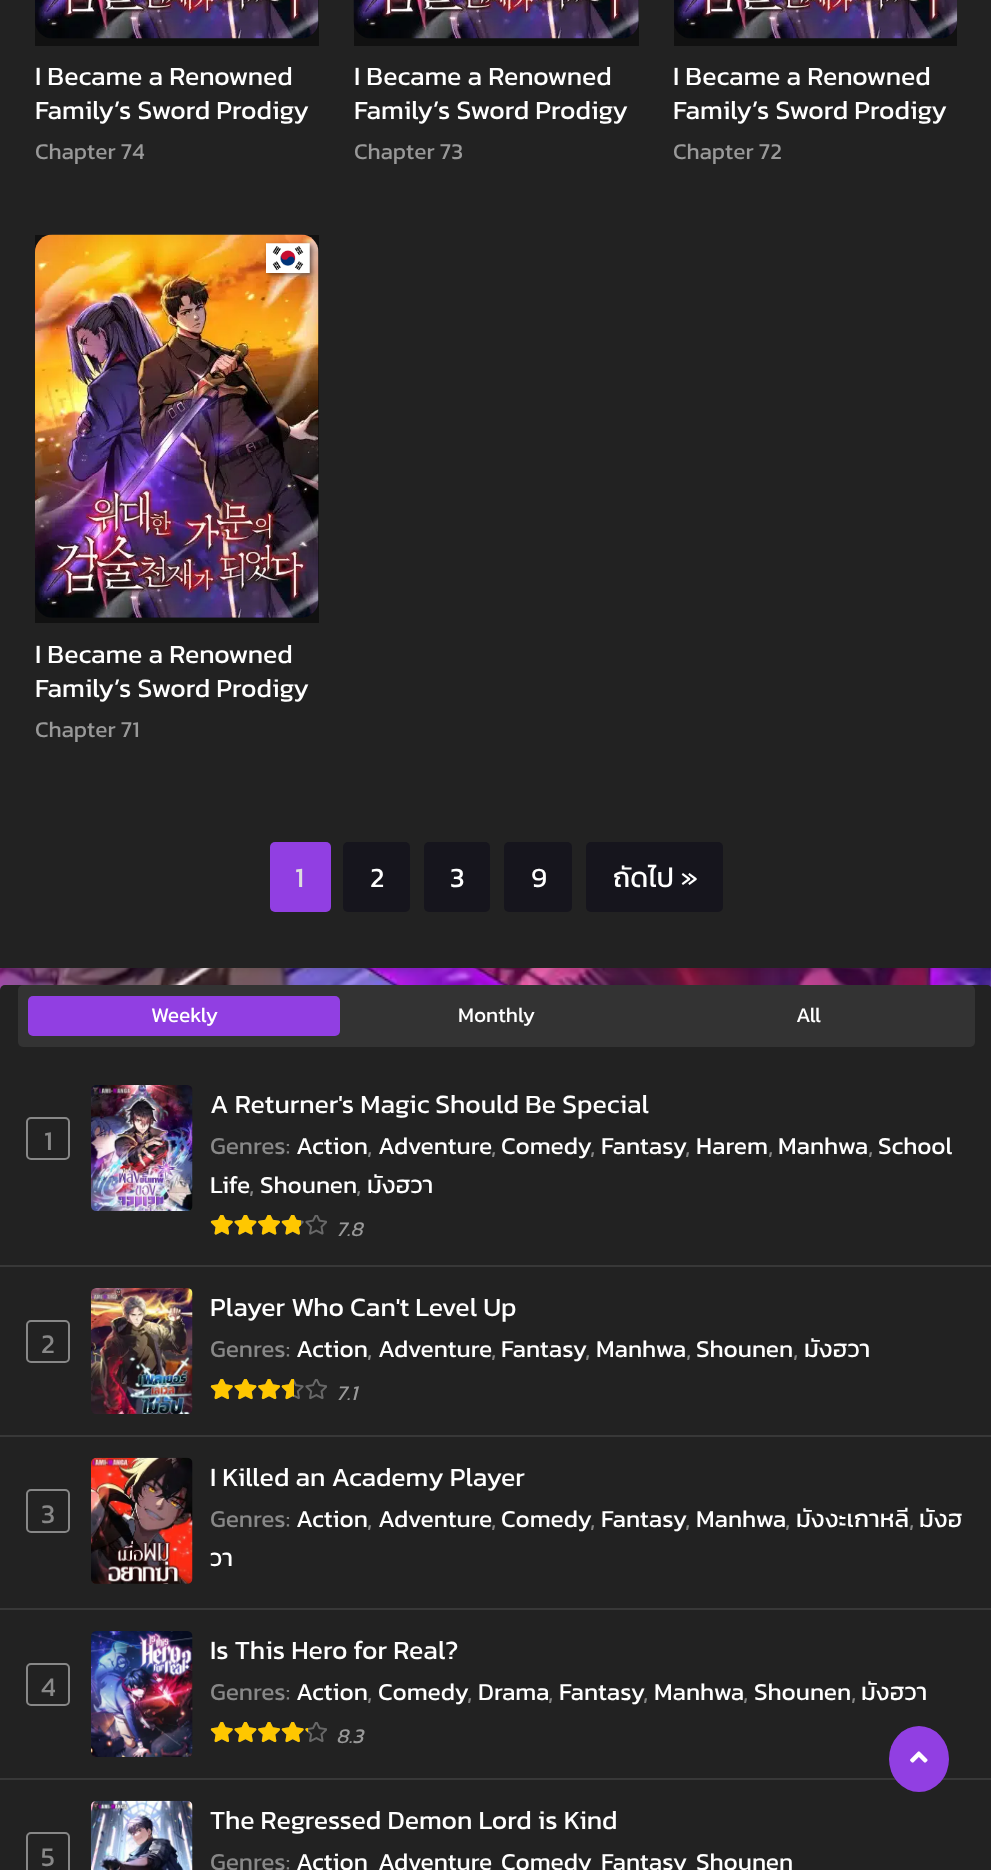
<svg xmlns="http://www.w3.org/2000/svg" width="991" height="1870">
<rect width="100%" height="100%" fill="#fff"/>
<image x="0" y="968" width="991" height="22" href="media/1.png"/>
<rect y="-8" width="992" height="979" fill="#0000001a" filter="blur(2.5px)"/>
<rect width="991" height="968" fill="#222"/>
<rect x="35" width="284" height="46" fill="#111"/>
<image x="35" y="0" width="284" height="39" href="media/2.png"/>
<text x="35" y="85" style="font-family:Kanit;font-size:26.6px;fill:#fff">I Became a Renowned</text>
<text x="35" y="119" style="font-family:Kanit;font-size:26.6px;fill:#fff">Family’s Sword Prodigy</text>
<text x="35" y="159" style="font-family:Kanit;font-size:22.75px;fill:#999">Chapter 74</text>
<rect x="354" width="285" height="46" fill="#111"/>
<image x="353" y="0" width="286" height="39" href="media/3.png"/>
<text x="354" y="85" style="font-family:Kanit;font-size:26.6px;fill:#fff">I Became a Renowned</text>
<text x="354" y="119" style="font-family:Kanit;font-size:26.6px;fill:#fff">Family’s Sword Prodigy</text>
<text x="354" y="159" style="font-family:Kanit;font-size:22.75px;fill:#999">Chapter 73</text>
<rect x="674" y="23" width="283" height="23" fill="#111"/>
<image x="674" y="0" width="284" height="39" href="media/4.png"/>
<text x="673" y="85" style="font-family:Kanit;font-size:26.6px;fill:#fff">I Became a Renowned</text>
<text x="673" y="119" style="font-family:Kanit;font-size:26.6px;fill:#fff">Family’s Sword Prodigy</text>
<text x="673" y="159" style="font-family:Kanit;font-size:22.75px;fill:#999">Chapter 72</text>
<rect x="35" y="235" width="284" height="388" fill="#111"/>
<image x="35" y="234" width="284" height="384" href="media/5.png"/>
<rect x="268" y="245" width="44" height="30" fill="#00000080" filter="blur(2px)"/>
<image x="266" y="243" width="44" height="30" href="media/6.png"/>
<text x="35" y="663" style="font-family:Kanit;font-size:26.6px;fill:#fff">I Became a Renowned</text>
<text x="35" y="697" style="font-family:Kanit;font-size:26.6px;fill:#fff">Family’s Sword Prodigy</text>
<text x="35" y="737" style="font-family:Kanit;font-size:22.75px;fill:#999">Chapter 71</text>
<rect x="270" y="842" width="61" height="70" rx="5" fill="#913fe2"/>
<text x="295" y="887" style="font-family:Kanit;font-size:28px;fill:#ddd">1</text>
<rect x="343" y="842" width="67" height="70" rx="5" fill="#16151d"/>
<text x="370" y="887" style="font-family:Kanit;font-size:28px;fill:#fff">2</text>
<rect x="424" y="842" width="66" height="70" rx="5" fill="#16151d"/>
<text x="450" y="887" style="font-family:Kanit;font-size:28px;fill:#fff">3</text>
<rect x="504" y="842" width="68" height="70" rx="5" fill="#16151d"/>
<text x="531" y="887" style="font-family:Kanit;font-size:28px;fill:#fff">9</text>
<rect x="586" y="842" width="137" height="70" rx="5" fill="#16151d"/>
<text x="613" y="887" style="font-family:Kanit;font-size:28px;fill:#fff">ถัดไป »</text>
<rect y="985" width="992" height="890" rx="5" fill="#222"/>
<rect x="18" y="985" width="957" height="62" rx="5" fill="#333"/>
<rect x="28" y="996" width="312" height="40" rx="5" fill="#913fe2"/>
<text x="151" y="1022" style="font-family:Kanit;font-size:21px;fill:#fff">Weekly</text>
<text x="458" y="1022" style="font-family:Kanit;font-size:21px;fill:#fff">Monthly</text>
<text x="796" y="1022" style="font-family:Kanit;font-size:21px;fill:#fff">All</text>
<rect y="1265" width="991" height="2" fill="#383838"/>
<rect x="27" y="1118" width="42" height="41" rx="4" fill="none" stroke="#888" stroke-width="2"/>
<text x="44" y="1150" style="font-family:Kanit;font-size:27px;fill:#888">1</text>
<image x="91" y="1085" width="102" height="126" href="media/7.png"/>
<text x="210" y="1113" style="font-family:Kanit;font-size:26.6px;fill:#fff">A Returner's Magic Should Be Special</text>
<text x="210" y="1154" style="font-family:Kanit;font-size:24.5px;fill:#888">Genres:</text>
<text x="296" y="1154" style="font-family:Kanit;font-size:24.5px;fill:#fff">Action</text>
<text x="367" y="1154" style="font-family:Kanit;font-size:24.5px;fill:#888">,</text>
<text x="378" y="1154" style="font-family:Kanit;font-size:24.5px;fill:#fff">Adventure</text>
<text x="491" y="1154" style="font-family:Kanit;font-size:24.5px;fill:#888">,</text>
<text x="501" y="1154" style="font-family:Kanit;font-size:24.5px;fill:#fff">Comedy</text>
<text x="590" y="1154" style="font-family:Kanit;font-size:24.5px;fill:#888">,</text>
<text x="601" y="1154" style="font-family:Kanit;font-size:24.5px;fill:#fff">Fantasy</text>
<text x="685" y="1154" style="font-family:Kanit;font-size:24.5px;fill:#888">,</text>
<text x="696" y="1154" style="font-family:Kanit;font-size:24.5px;fill:#fff">Harem</text>
<text x="768" y="1154" style="font-family:Kanit;font-size:24.5px;fill:#888">,</text>
<text x="778" y="1154" style="font-family:Kanit;font-size:24.5px;fill:#fff">Manhwa</text>
<text x="868" y="1154" style="font-family:Kanit;font-size:24.5px;fill:#888">,</text>
<text x="878" y="1154" style="font-family:Kanit;font-size:24.5px;fill:#fff">School</text>
<text x="210" y="1193" style="font-family:Kanit;font-size:24.5px;fill:#fff">Life</text>
<text x="249" y="1193" style="font-family:Kanit;font-size:24.5px;fill:#888">,</text>
<text x="260" y="1193" style="font-family:Kanit;font-size:24.5px;fill:#fff">Shounen</text>
<text x="356" y="1193" style="font-family:Kanit;font-size:24.5px;fill:#888">,</text>
<text x="367" y="1193" style="font-family:Kanit;font-size:24.5px;fill:#fff">มังฮวา</text>
<image x="210" y="1215" width="117" height="20" href="media/8.png"/>
<image x="210" y="1215" width="91" height="20" href="media/9.png"/>
<text x="336" y="1236" style="font-family:Kanit;font-size:21px;font-style:italic;fill:#999">7.8</text>
<rect y="1435" width="991" height="2" fill="#383838"/>
<rect x="27" y="1321" width="42" height="41" rx="4" fill="none" stroke="#888" stroke-width="2"/>
<text x="41" y="1353" style="font-family:Kanit;font-size:27px;fill:#888">2</text>
<image x="91" y="1288" width="102" height="126" href="media/10.png"/>
<text x="210" y="1316" style="font-family:Kanit;font-size:26.6px;fill:#fff">Player Who Can't Level Up</text>
<text x="210" y="1357" style="font-family:Kanit;font-size:24.5px;fill:#888">Genres:</text>
<text x="296" y="1357" style="font-family:Kanit;font-size:24.5px;fill:#fff">Action</text>
<text x="367" y="1357" style="font-family:Kanit;font-size:24.5px;fill:#888">,</text>
<text x="378" y="1357" style="font-family:Kanit;font-size:24.5px;fill:#fff">Adventure</text>
<text x="491" y="1357" style="font-family:Kanit;font-size:24.5px;fill:#888">,</text>
<text x="501" y="1357" style="font-family:Kanit;font-size:24.5px;fill:#fff">Fantasy</text>
<text x="585" y="1357" style="font-family:Kanit;font-size:24.5px;fill:#888">,</text>
<text x="596" y="1357" style="font-family:Kanit;font-size:24.5px;fill:#fff">Manhwa</text>
<text x="686" y="1357" style="font-family:Kanit;font-size:24.5px;fill:#888">,</text>
<text x="696" y="1357" style="font-family:Kanit;font-size:24.5px;fill:#fff">Shounen</text>
<text x="793" y="1357" style="font-family:Kanit;font-size:24.5px;fill:#888">,</text>
<text x="804" y="1357" style="font-family:Kanit;font-size:24.5px;fill:#fff">มังฮวา</text>
<image x="210" y="1379" width="117" height="21" href="media/11.png"/>
<image x="210" y="1379" width="84" height="21" href="media/12.png"/>
<text x="336" y="1400" style="font-family:Kanit;font-size:21px;font-style:italic;fill:#999">7.1</text>
<rect y="1608" width="991" height="2" fill="#383838"/>
<rect x="27" y="1490" width="42" height="42" rx="4" fill="none" stroke="#888" stroke-width="2"/>
<text x="41" y="1523" style="font-family:Kanit;font-size:27px;fill:#888">3</text>
<image x="91" y="1457" width="102" height="127" href="media/13.png"/>
<text x="210" y="1486" style="font-family:Kanit;font-size:26.6px;fill:#fff">I Killed an Academy Player</text>
<text x="210" y="1527" style="font-family:Kanit;font-size:24.5px;fill:#888">Genres:</text>
<text x="296" y="1527" style="font-family:Kanit;font-size:24.5px;fill:#fff">Action</text>
<text x="367" y="1527" style="font-family:Kanit;font-size:24.5px;fill:#888">,</text>
<text x="378" y="1527" style="font-family:Kanit;font-size:24.5px;fill:#fff">Adventure</text>
<text x="491" y="1527" style="font-family:Kanit;font-size:24.5px;fill:#888">,</text>
<text x="501" y="1527" style="font-family:Kanit;font-size:24.5px;fill:#fff">Comedy</text>
<text x="590" y="1527" style="font-family:Kanit;font-size:24.5px;fill:#888">,</text>
<text x="601" y="1527" style="font-family:Kanit;font-size:24.5px;fill:#fff">Fantasy</text>
<text x="685" y="1527" style="font-family:Kanit;font-size:24.5px;fill:#888">,</text>
<text x="696" y="1527" style="font-family:Kanit;font-size:24.5px;fill:#fff">Manhwa</text>
<text x="785" y="1527" style="font-family:Kanit;font-size:24.5px;fill:#888">,</text>
<text x="796" y="1527" style="font-family:Kanit;font-size:24.5px;fill:#fff">มังงะเกาหลี</text>
<text x="909" y="1527" style="font-family:Kanit;font-size:24.5px;fill:#888">,</text>
<text x="919" y="1527" style="font-family:Kanit;font-size:24.5px;fill:#fff">มังฮ</text>
<text x="210" y="1566" style="font-family:Kanit;font-size:24.5px;fill:#fff">วา</text>
<rect y="1778" width="991" height="2" fill="#383838"/>
<rect x="27" y="1664" width="42" height="41" rx="4" fill="none" stroke="#888" stroke-width="2"/>
<text x="41" y="1696" style="font-family:Kanit;font-size:27px;fill:#888">4</text>
<image x="91" y="1631" width="102" height="126" href="media/14.png"/>
<text x="210" y="1659" style="font-family:Kanit;font-size:26.6px;fill:#fff">Is This Hero for Real?</text>
<text x="210" y="1700" style="font-family:Kanit;font-size:24.5px;fill:#888">Genres:</text>
<text x="296" y="1700" style="font-family:Kanit;font-size:24.5px;fill:#fff">Action</text>
<text x="367" y="1700" style="font-family:Kanit;font-size:24.5px;fill:#888">,</text>
<text x="378" y="1700" style="font-family:Kanit;font-size:24.5px;fill:#fff">Comedy</text>
<text x="478" y="1700" style="font-family:Kanit;font-size:24.5px;fill:#fff">Drama</text>
<text x="559" y="1700" style="font-family:Kanit;font-size:24.5px;fill:#fff">Fantasy</text>
<text x="654" y="1700" style="font-family:Kanit;font-size:24.5px;fill:#fff">Manhwa</text>
<text x="754" y="1700" style="font-family:Kanit;font-size:24.5px;fill:#fff">Shounen</text>
<text x="851" y="1700" style="font-family:Kanit;font-size:24.5px;fill:#888">,</text>
<text x="861" y="1700" style="font-family:Kanit;font-size:24.5px;fill:#fff">มังฮวา</text>
<text x="467" y="1700" style="font-family:Kanit;font-size:24.5px;fill:#888">,</text>
<text x="548" y="1700" style="font-family:Kanit;font-size:24.5px;fill:#888">,</text>
<text x="643" y="1700" style="font-family:Kanit;font-size:24.5px;fill:#888">,</text>
<text x="743" y="1700" style="font-family:Kanit;font-size:24.5px;fill:#888">,</text>
<image x="210" y="1722" width="117" height="21" href="media/11.png"/>
<image x="210" y="1722" width="98" height="21" href="media/15.png"/>
<text x="336" y="1743" style="font-family:Kanit;font-size:21px;font-style:italic;fill:#999">8.3</text>
<rect x="27" y="1833" width="42" height="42" rx="4" fill="none" stroke="#888" stroke-width="2"/>
<text x="41" y="1866" style="font-family:Kanit;font-size:27px;fill:#888">5</text>
<image x="91" y="1800" width="102" height="70" href="media/16.png"/>
<text x="210" y="1829" style="font-family:Kanit;font-size:26.6px;fill:#fff">The Regressed Demon Lord is Kind</text>
<text x="210" y="1870" style="font-family:Kanit;font-size:24.5px;fill:#888">Genres:</text>
<text x="296" y="1870" style="font-family:Kanit;font-size:24.5px;fill:#fff">Action</text>
<text x="378" y="1870" style="font-family:Kanit;font-size:24.5px;fill:#fff">Adventure</text>
<text x="501" y="1870" style="font-family:Kanit;font-size:24.5px;fill:#fff">Comedy</text>
<text x="601" y="1870" style="font-family:Kanit;font-size:24.5px;fill:#fff">Fantasy</text>
<text x="696" y="1870" style="font-family:Kanit;font-size:24.5px;fill:#fff">Shounen</text>
<ellipse cx="919" cy="1759" rx="30" ry="33" fill="#913fe2"/>
<image x="910" y="1751" width="18" height="12" href="media/17.png"/>
</svg>
